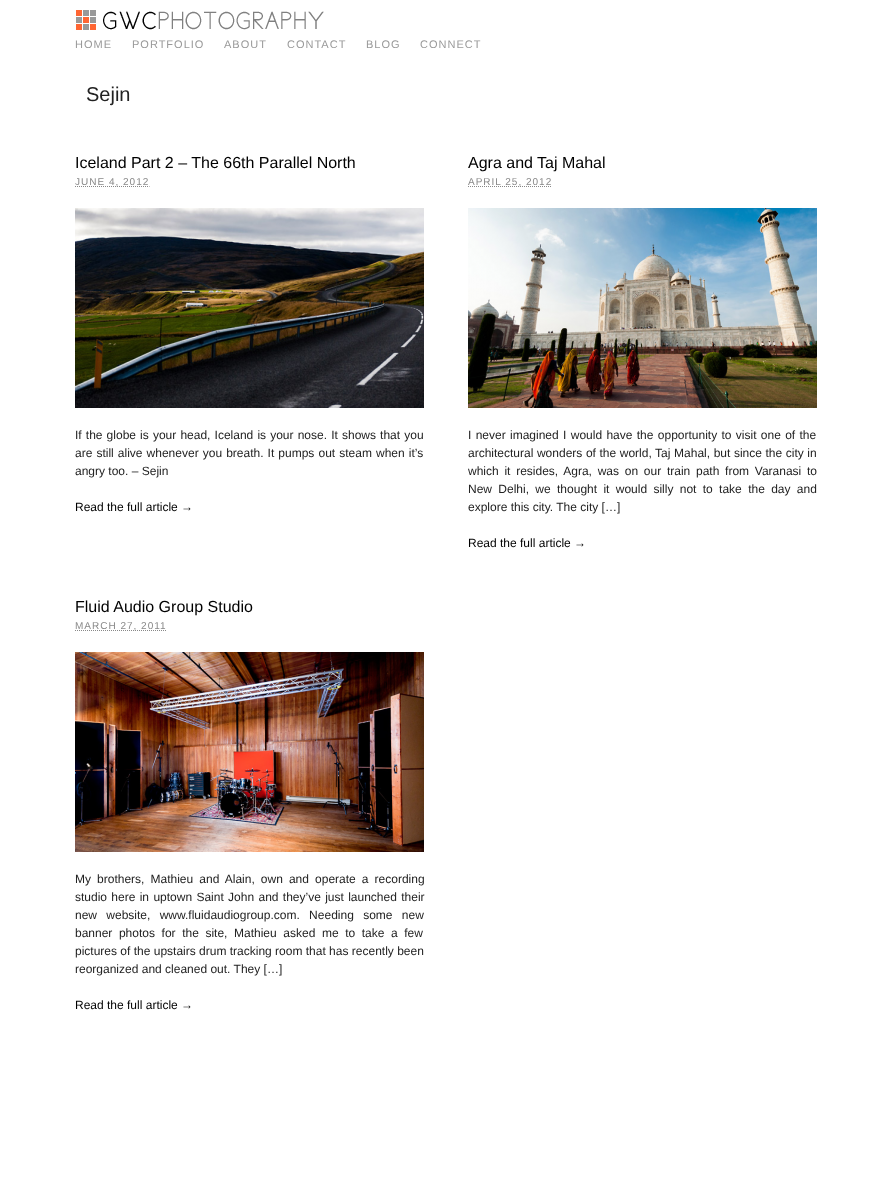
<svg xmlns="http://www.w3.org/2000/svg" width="892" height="1195">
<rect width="100%" height="100%" fill="#fff"/>
<image x="76" y="10" width="248" height="20" href="media/1.png"/>
<text x="75" y="48" style="font-family:Liberation Sans;font-size:11px;letter-spacing:1px;fill:#999">HOME</text>
<text x="132" y="48" style="font-family:Liberation Sans;font-size:11px;letter-spacing:1px;fill:#999">PORTFOLIO</text>
<text x="224" y="48" style="font-family:Liberation Sans;font-size:11px;letter-spacing:1px;fill:#999">ABOUT</text>
<text x="287" y="48" style="font-family:Liberation Sans;font-size:11px;letter-spacing:1px;fill:#999">CONTACT</text>
<text x="366" y="48" style="font-family:Liberation Sans;font-size:11px;letter-spacing:1px;fill:#999">BLOG</text>
<text x="420" y="48" style="font-family:Liberation Sans;font-size:11px;letter-spacing:1px;fill:#999">CONNECT</text>
<text x="86" y="101" style="font-family:Liberation Sans;font-size:20px;fill:#222">Sejin</text>
<text x="75" y="168" style="font-family:Liberation Sans;font-size:16px;fill:#000">Iceland Part 2 – The 66th Parallel North</text>
<path d="M75 186.5h74.5" fill="none" stroke="#888" stroke-dasharray="1 1"/>
<text x="75" y="185" style="font-family:Liberation Sans;font-size:10px;letter-spacing:1px;fill:#888">JUNE 4, 2012</text>
<image x="75" y="208" width="349" height="200" href="media/2.png"/>
<text x="75" y="439" word-spacing="0.8" style="font-family:Liberation Sans;font-size:12px;fill:#222">If the globe is your head, Iceland is your nose. It shows that you</text>
<text x="75" y="457" word-spacing="0.75" style="font-family:Liberation Sans;font-size:12px;fill:#222">are still alive whenever you breath. It pumps out steam when it’s</text>
<text x="75" y="475" style="font-family:Liberation Sans;font-size:12px;fill:#222">angry too. – Sejin</text>
<text x="75" y="511" style="font-family:Liberation Sans;font-size:12px;fill:#000">Read the full article →</text>
<text x="468" y="168" style="font-family:Liberation Sans;font-size:16px;fill:#000">Agra and Taj Mahal</text>
<path d="M468 186.5h84" fill="none" stroke="#888" stroke-dasharray="1 1"/>
<text x="468" y="185" style="font-family:Liberation Sans;font-size:10px;letter-spacing:1px;fill:#888">APRIL 25, 2012</text>
<image x="468" y="208" width="349" height="200" href="media/3.png"/>
<text x="468" y="439" word-spacing="1" style="font-family:Liberation Sans;font-size:12px;fill:#222">I never imagined I would have the opportunity to visit one of the</text>
<text x="468" y="457" word-spacing="0.25" style="font-family:Liberation Sans;font-size:12px;fill:#222">architectural wonders of the world, Taj Mahal, but since the city in</text>
<text x="468" y="475" word-spacing="2.4" style="font-family:Liberation Sans;font-size:12px;fill:#222">which it resides, Agra, was on our train path from Varanasi to</text>
<text x="468" y="493" word-spacing="3" style="font-family:Liberation Sans;font-size:12px;fill:#222">New Delhi, we thought it would silly not to take the day and</text>
<text x="468" y="511" style="font-family:Liberation Sans;font-size:12px;fill:#222">explore this city. The city […]</text>
<text x="468" y="547" style="font-family:Liberation Sans;font-size:12px;fill:#000">Read the full article →</text>
<text x="75" y="612" style="font-family:Liberation Sans;font-size:16px;fill:#000">Fluid Audio Group Studio</text>
<path d="M75 630.5h91.5" fill="none" stroke="#888" stroke-dasharray="1 1"/>
<text x="75" y="629" style="font-family:Liberation Sans;font-size:10px;letter-spacing:1px;fill:#888">MARCH 27, 2011</text>
<image x="75" y="652" width="349" height="200" href="media/4.png"/>
<text x="75" y="883" word-spacing="2.75" style="font-family:Liberation Sans;font-size:12px;fill:#222">My brothers, Mathieu and Alain, own and operate a recording</text>
<text x="75" y="901" word-spacing="1" style="font-family:Liberation Sans;font-size:12px;fill:#222">studio here in uptown Saint John and they’ve just launched their</text>
<text x="75" y="919" word-spacing="6" style="font-family:Liberation Sans;font-size:12px;fill:#222">new website, www.fluidaudiogroup.com. Needing some new</text>
<text x="75" y="937" word-spacing="3.25" style="font-family:Liberation Sans;font-size:12px;fill:#222">banner photos for the site, Mathieu asked me to take a few</text>
<text x="75" y="955" style="font-family:Liberation Sans;font-size:12px;fill:#222">pictures of the upstairs drum tracking room that has recently been</text>
<text x="75" y="973" style="font-family:Liberation Sans;font-size:12px;fill:#222">reorganized and cleaned out. They […]</text>
<text x="75" y="1009" style="font-family:Liberation Sans;font-size:12px;fill:#000">Read the full article →</text>
</svg>
